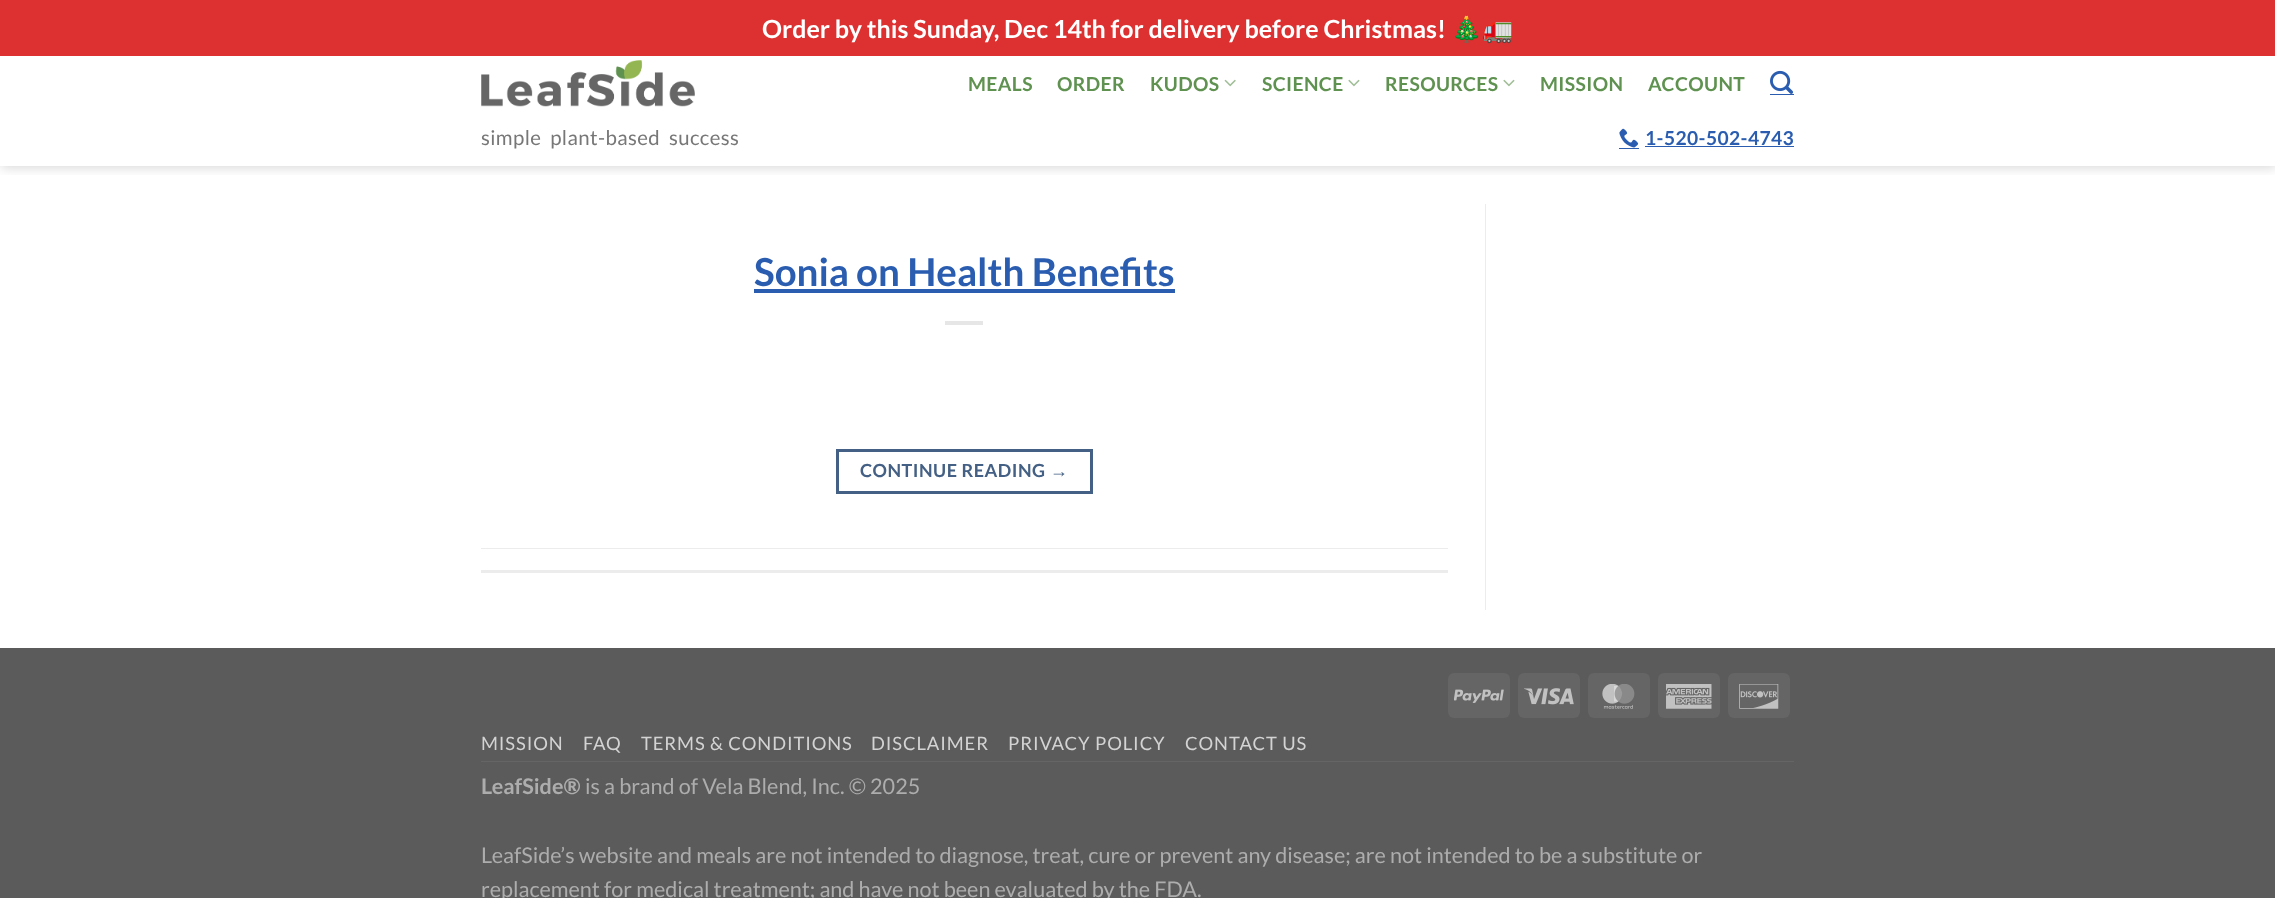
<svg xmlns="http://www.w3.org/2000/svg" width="2275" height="898">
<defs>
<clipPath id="clip1"><rect x="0" y="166" width="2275" height="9"/></clipPath>
</defs>
<rect width="100%" height="100%" fill="#fff"/>
<g clip-path="url(#clip1)">
<rect x="1" y="1" width="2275" height="167" fill="#00000026" filter="blur(6px)"/>
</g>
<rect width="2275" height="56" fill="#dd3030"/>
<text x="762" y="38" style="font-family:Lato;font-size:25px;font-weight:bold;fill:#fff">Order by this Sunday, Dec 14th for delivery before Christmas!</text>
<text x="1451" y="38" style="font-family:Noto Color Emoji;font-size:25px;font-weight:bold;fill:#fff">🎄🚛</text>
<image x="481" y="60" width="214" height="47" href="media/1.png"/>
<text x="968" y="91" style="font-family:Lato;font-size:19.25px;font-weight:bold;letter-spacing:0.4px;fill:#5f9250">MEALS</text>
<text x="1057" y="91" style="font-family:Lato;font-size:19.25px;font-weight:bold;letter-spacing:0.4px;fill:#5f9250">ORDER</text>
<text x="1150" y="91" style="font-family:Lato;font-size:19.25px;font-weight:bold;letter-spacing:0.4px;fill:#5f9250">KUDOS</text>
<image x="1224" y="79" width="12" height="8" href="media/2.png"/>
<text x="1262" y="91" style="font-family:Lato;font-size:19.25px;font-weight:bold;letter-spacing:0.4px;fill:#5f9250">SCIENCE</text>
<image x="1348" y="79" width="12" height="8" href="media/3.png"/>
<text x="1385" y="91" style="font-family:Lato;font-size:19.25px;font-weight:bold;letter-spacing:0.4px;fill:#5f9250">RESOURCES</text>
<image x="1503" y="79" width="12" height="8" href="media/3.png"/>
<text x="1540" y="91" style="font-family:Lato;font-size:19.25px;font-weight:bold;letter-spacing:0.4px;fill:#5f9250">MISSION</text>
<text x="1648" y="91" style="font-family:Lato;font-size:19.25px;font-weight:bold;letter-spacing:0.4px;fill:#5f9250">ACCOUNT</text>
<image x="1770" y="70" width="23" height="24" href="media/4.png"/>
<rect x="1770" y="94" width="24" height="1" fill="#2a5db0"/>
<text x="481" y="145" style="font-family:Lato;font-size:20.4px;letter-spacing:0.4px;fill:#777">simple  plant-based  success</text>
<image x="1619" y="128" width="20" height="20" href="media/5.png"/>
<rect x="1619" y="148" width="20" height="1" fill="#2a5db0"/>
<text x="1645" y="145" style="font-family:Lato;font-size:19.25px;font-weight:bold;letter-spacing:0.4px;fill:#2a5db0">1-520-502-4743</text>
<rect x="1645" y="146" width="149" height="1" fill="#2a5db0"/>
<text x="754" y="286" style="font-family:Lato;font-size:38.5px;font-weight:bold;fill:#2a5db0">Sonia</text>
<rect x="754" y="289" width="421" height="4" fill="#2a5db0"/>
<text x="856" y="286" style="font-family:Lato;font-size:38.5px;font-weight:bold;fill:#2a5db0">on Health Benefits</text>
<rect x="945" y="321" width="38" height="4" fill="#e6e6e6"/>
<rect x="837.5" y="450.5" width="254" height="42" fill="none" stroke="#446084" stroke-width="3"/>
<text x="860" y="477" style="font-family:Lato;font-size:18px;font-weight:bold;letter-spacing:0.5px;fill:#446084">CONTINUE READING</text>
<text x="1050" y="477" style="font-family:Liberation Sans;font-size:18px;font-weight:bold;letter-spacing:0.5px;fill:#446084">→</text>
<rect x="481" y="548" width="967" height="1" fill="#ececec"/>
<rect x="481" y="570" width="967" height="3" fill="#ececec"/>
<rect x="1485" y="204" width="1" height="406" fill="#ececec"/>
<rect y="648" width="2275" height="250" fill="#5b5b5b"/>
<rect x="1448" y="673" width="62" height="45" rx="6" fill="#656565"/>
<image x="1454" y="689" width="50" height="14" href="media/6.png"/>
<rect x="1518" y="673" width="62" height="45" rx="6" fill="#656565"/>
<image x="1524" y="688" width="50" height="17" href="media/7.png"/>
<rect x="1588" y="673" width="62" height="45" rx="6" fill="#656565"/>
<image x="1602" y="684" width="33" height="25" href="media/8.png"/>
<rect x="1658" y="673" width="62" height="45" rx="6" fill="#656565"/>
<image x="1666" y="684" width="46" height="25" href="media/9.png"/>
<rect x="1728" y="673" width="62" height="45" rx="6" fill="#656565"/>
<image x="1739" y="684" width="40" height="25" href="media/10.png"/>
<rect x="481" y="761" width="1313" height="1" fill="#656565"/>
<text x="481" y="750" style="font-family:Lato;font-size:18.4px;letter-spacing:0.9px;fill:#d3d3d3">MISSION</text>
<text x="583" y="750" style="font-family:Lato;font-size:18.4px;letter-spacing:0.9px;fill:#d3d3d3">FAQ</text>
<text x="641" y="750" style="font-family:Lato;font-size:18.4px;letter-spacing:0.9px;fill:#d3d3d3">TERMS &amp; CONDITIONS</text>
<text x="871" y="750" style="font-family:Lato;font-size:18.4px;letter-spacing:0.9px;fill:#d3d3d3">DISCLAIMER</text>
<text x="1008" y="750" style="font-family:Lato;font-size:18.4px;letter-spacing:0.9px;fill:#d3d3d3">PRIVACY POLICY</text>
<text x="1185" y="750" style="font-family:Lato;font-size:18.4px;letter-spacing:0.9px;fill:#d3d3d3">CONTACT US</text>
<text x="481" y="794" style="font-family:Lato;font-size:21.6px;font-weight:bold;fill:#adadad">LeafSide®</text>
<text x="585" y="794" style="font-family:Lato;font-size:21.6px;fill:#adadad">is a brand of Vela Blend, Inc. © 2025</text>
<text x="481" y="863" style="font-family:Lato;font-size:21.6px;fill:#adadad">LeafSide’s website and meals are not intended to diagnose, treat, cure or prevent any disease; are not intended to be a substitute or</text>
<text x="481" y="897" style="font-family:Lato;font-size:21.6px;fill:#adadad">replacement for medical treatment; and have not been evaluated by the FDA.</text>
</svg>
